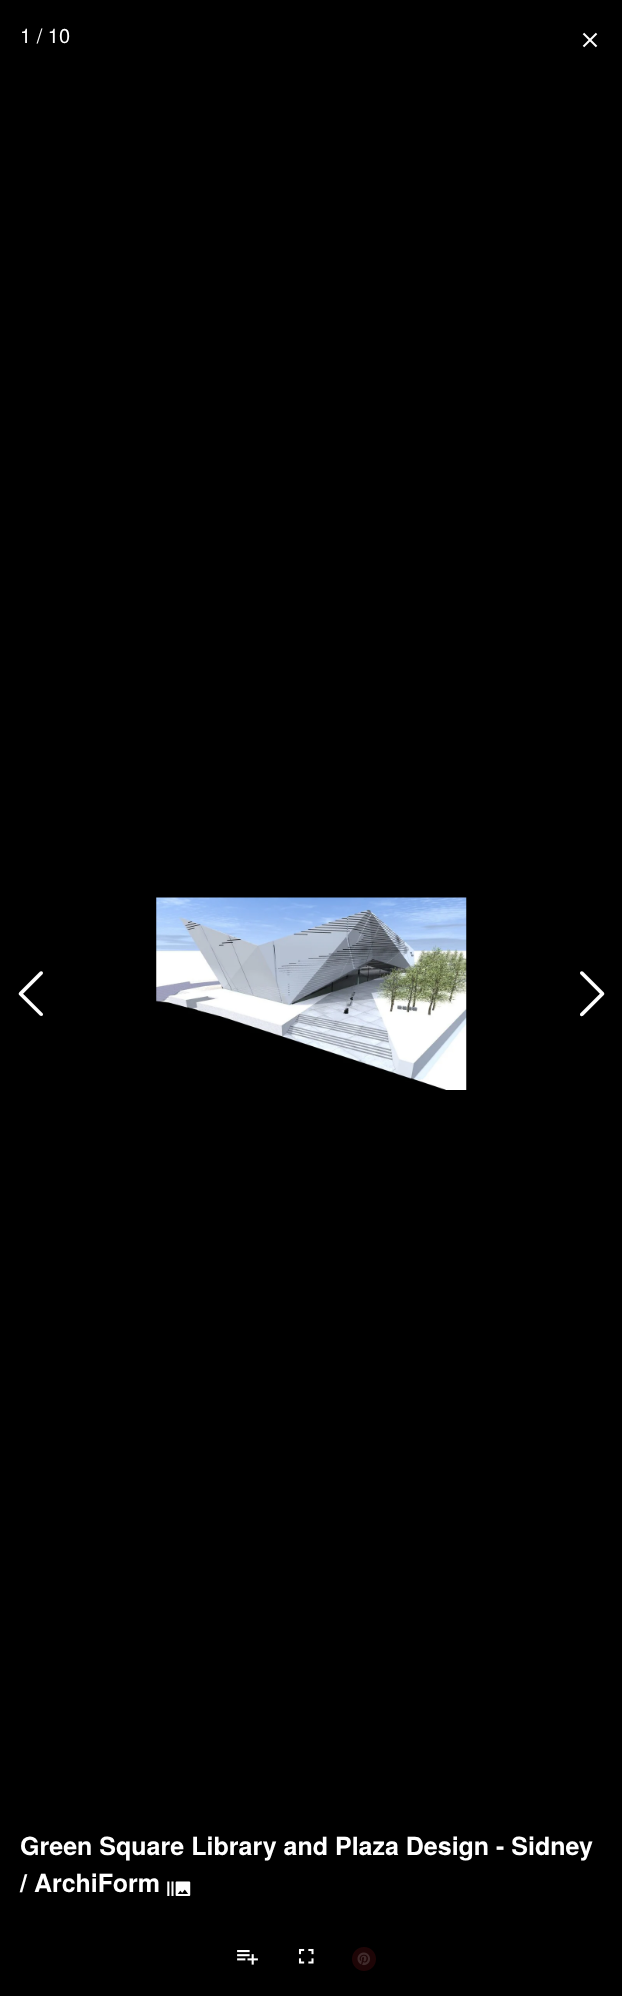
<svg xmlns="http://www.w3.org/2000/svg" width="622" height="1996">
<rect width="100%" height="100%" fill="#000"/>
<text x="20" y="43" style="font-family:TeX Gyre Heros;font-size:20px;fill:#fff">1 / 10</text>
<image x="582" y="32" width="16" height="16" href="media/1.png"/>
<image x="156" y="897" width="311" height="193" href="media/2.png"/>
<image x="18" y="971" width="25" height="45" href="media/3.png"/>
<image x="580" y="971" width="25" height="46" href="media/4.png"/>
<text x="20" y="1855" style="font-family:TeX Gyre Heros;font-size:25px;font-weight:bold;fill:#fff">Green Square Library and Plaza Design - Sidney</text>
<text x="20" y="1892" style="font-family:TeX Gyre Heros;font-size:25px;font-weight:bold;fill:#fff">/ ArchiForm</text>
<image x="167" y="1881" width="24" height="15" href="media/5.png"/>
<image x="237" y="1950" width="21" height="15" href="media/6.png"/>
<image x="298" y="1948" width="16" height="16" href="media/7.png"/>
<image x="352" y="1947" width="24" height="24" href="media/8.png"/>
</svg>
